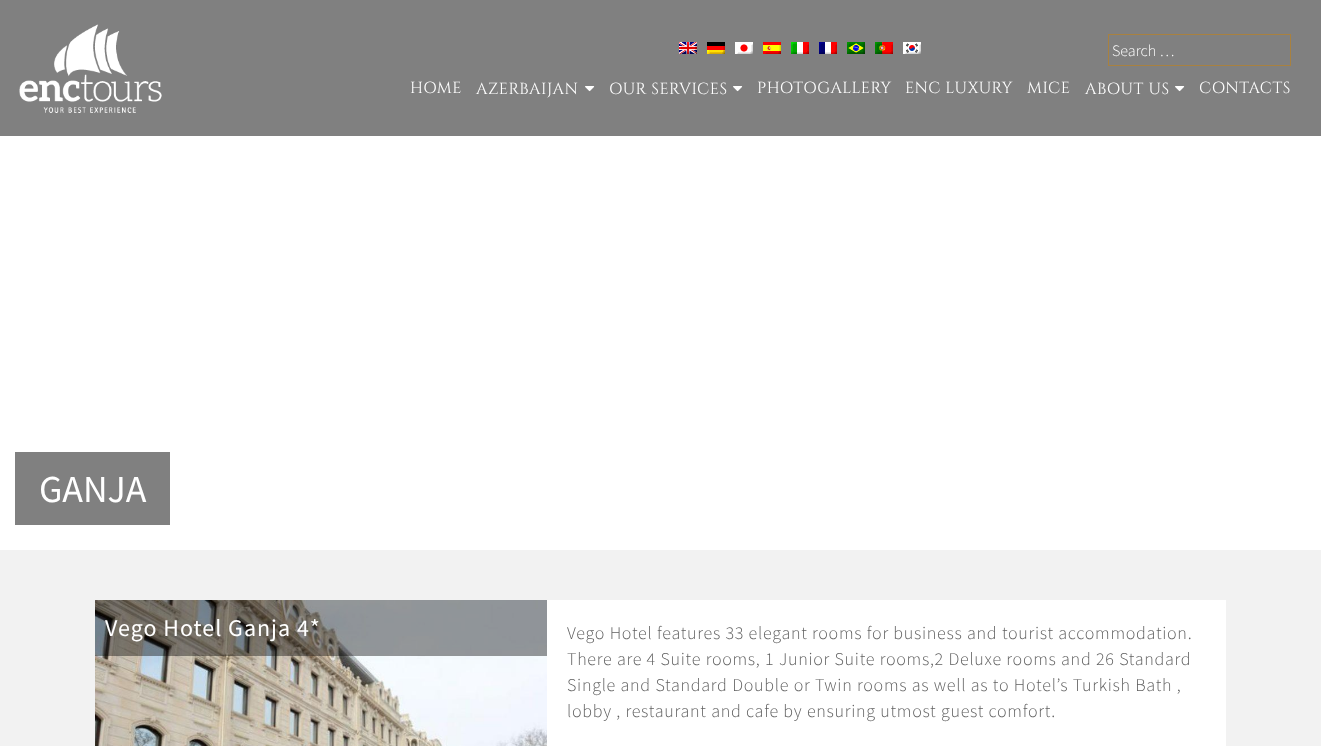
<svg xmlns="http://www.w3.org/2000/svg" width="1321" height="746">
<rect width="100%" height="100%" fill="#fff"/>
<rect width="1321" height="136" fill="#808080"/>
<image x="19" y="24" width="143" height="89" href="media/1.png"/>
<image x="679" y="42" width="18" height="12" href="media/2.png"/>
<image x="707" y="42" width="18" height="12" href="media/3.png"/>
<image x="735" y="42" width="18" height="12" href="media/4.png"/>
<image x="763" y="42" width="18" height="12" href="media/5.png"/>
<image x="791" y="42" width="18" height="12" href="media/6.png"/>
<image x="819" y="42" width="18" height="12" href="media/7.png"/>
<image x="847" y="42" width="18" height="12" href="media/8.png"/>
<image x="875" y="42" width="18" height="12" href="media/9.png"/>
<image x="903" y="42" width="18" height="12" href="media/10.png"/>
<rect x="1108.5" y="34.5" width="182" height="31" fill="none" stroke="#a88140"/>
<text x="1112" y="56" style="font-family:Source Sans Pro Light;font-size:16px;font-weight:300;fill:#fff">Search …</text>
<text x="410" y="93" style="font-family:Cinzel;font-size:16px;letter-spacing:0.5px;fill:#fff">HOME</text>
<text x="476" y="94" style="font-family:Cinzel;font-size:16px;letter-spacing:0.5px;fill:#fff">AZERBAIJAN</text>
<image x="585" y="86" width="10" height="6" href="media/11.png"/>
<text x="609" y="94" style="font-family:Cinzel;font-size:16px;letter-spacing:0.5px;fill:#fff">OUR SERVICES</text>
<image x="733" y="86" width="10" height="6" href="media/11.png"/>
<text x="757" y="93" style="font-family:Cinzel;font-size:16px;letter-spacing:0.5px;fill:#fff">PHOTOGALLERY</text>
<text x="905" y="93" style="font-family:Cinzel;font-size:16px;letter-spacing:0.5px;fill:#fff">ENC LUXURY</text>
<text x="1027" y="93" style="font-family:Cinzel;font-size:16px;letter-spacing:0.5px;fill:#fff">MICE</text>
<text x="1085" y="94" style="font-family:Cinzel;font-size:16px;letter-spacing:0.5px;fill:#fff">ABOUT US</text>
<image x="1175" y="86" width="10" height="6" href="media/11.png"/>
<text x="1199" y="93" style="font-family:Cinzel;font-size:16px;letter-spacing:0.5px;fill:#fff">CONTACTS</text>
<rect x="15" y="452" width="155" height="73" fill="#808080"/>
<text x="39" y="502" style="font-family:Source Sans Pro;font-size:38px;fill:#fff">GANJA</text>
<rect y="550" width="1321" height="196" fill="#f2f2f2"/>
<rect x="547" y="600" width="679" height="146" fill="#fff"/>
<image x="95" y="600" width="452" height="146" href="media/12.png"/>
<rect x="95" y="600" width="452" height="56" fill="#00000066"/>
<text x="105" y="636" style="font-family:Source Sans Pro;font-size:24px;letter-spacing:1px;fill:#fff">Vego Hotel Ganja 4*</text>
<text x="567" y="639" word-spacing="0.25" style="font-family:Source Sans Pro Light;font-size:18px;font-weight:300;letter-spacing:0.7px;fill:#5f5f5f">Vego Hotel features 33 elegant rooms for business and tourist accommodation.</text>
<text x="567" y="665" word-spacing="0.25" style="font-family:Source Sans Pro Light;font-size:18px;font-weight:300;letter-spacing:0.7px;fill:#5f5f5f">There are 4 Suite rooms, 1 Junior Suite rooms,2 Deluxe rooms and 26 Standard</text>
<text x="567" y="691" word-spacing="0.25" style="font-family:Source Sans Pro Light;font-size:18px;font-weight:300;letter-spacing:0.7px;fill:#5f5f5f">Single and Standard Double or Twin rooms as well as to Hotel’s Turkish Bath ,</text>
<text x="567" y="717" word-spacing="0.25" style="font-family:Source Sans Pro Light;font-size:18px;font-weight:300;letter-spacing:0.7px;fill:#5f5f5f">lobby , restaurant and cafe by ensuring utmost guest comfort.</text>
</svg>
